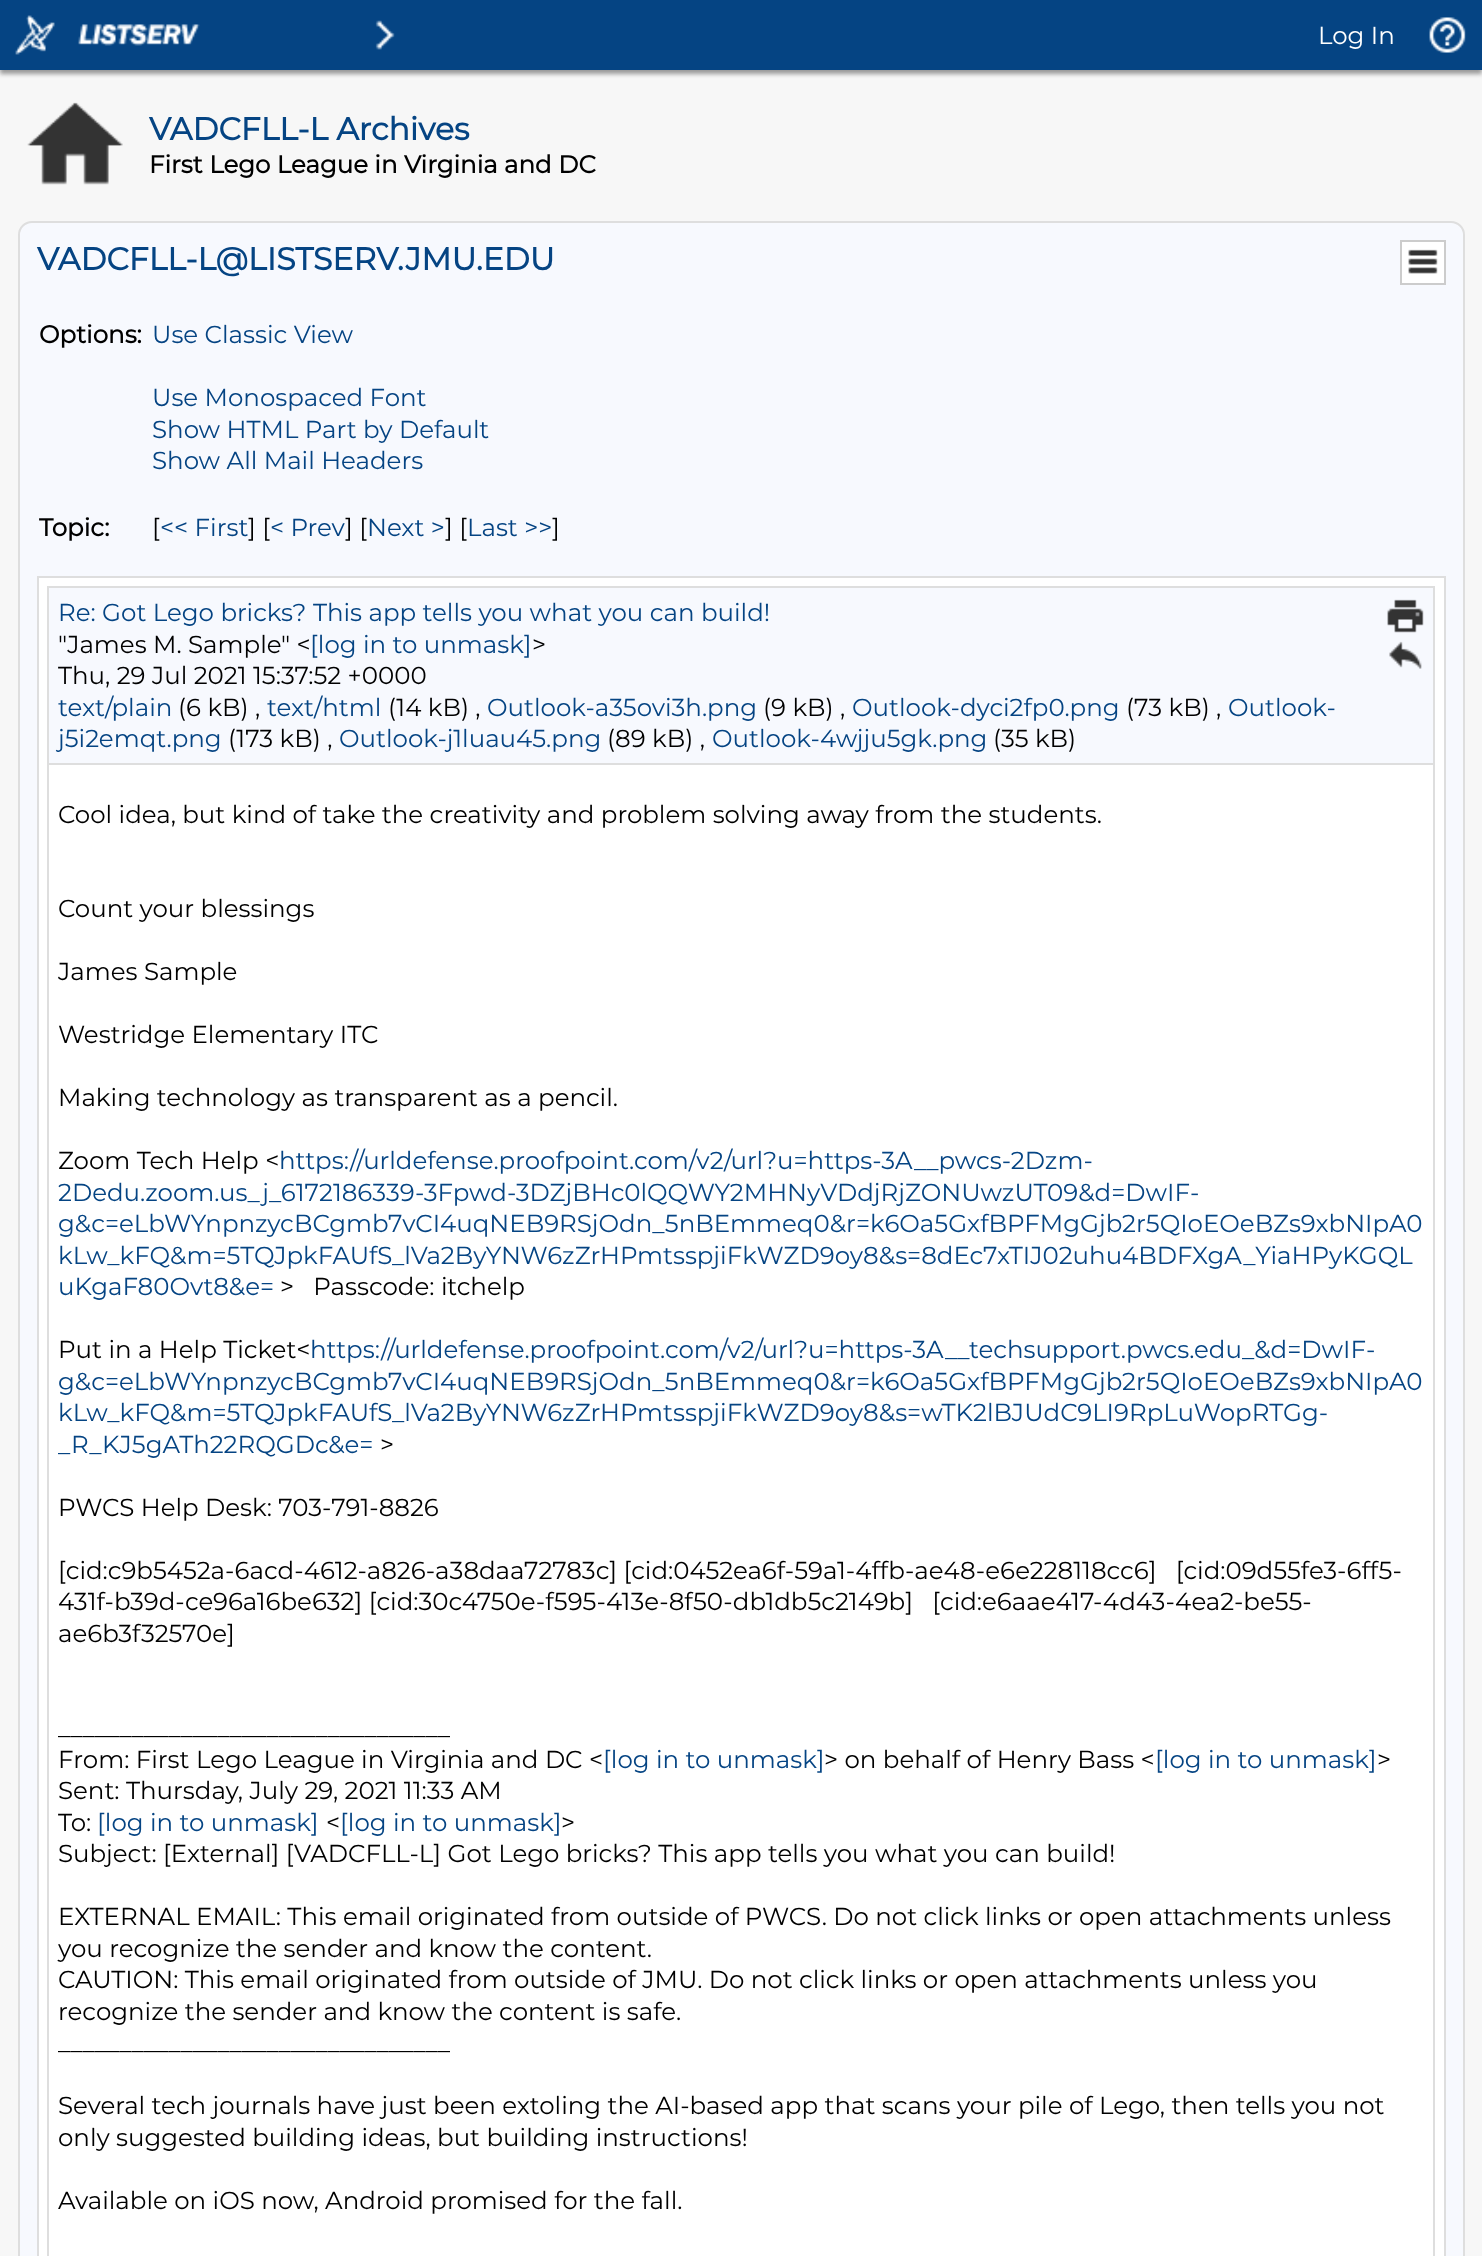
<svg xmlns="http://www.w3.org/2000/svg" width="1482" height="2256">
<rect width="100%" height="100%" fill="#f7f7f7"/>
<rect y="4" width="1482" height="70" fill="#999" filter="blur(2px)"/>
<rect width="1482" height="70" fill="#054483"/>
<image x="15" y="15" width="40" height="40" href="media/1.png"/>
<image x="78" y="24" width="122" height="22" href="media/2.png"/>
<image x="375" y="20" width="20" height="30" href="media/3.png"/>
<text x="1318" y="44" style="font-family:Montserrat;font-size:24.5px;font-weight:100;fill:#fff">Log In</text>
<image x="1429" y="17" width="37" height="36" href="media/4.png"/>
<image x="27" y="102" width="96" height="83" href="media/5.png"/>
<text x="149" y="140" style="font-family:Montserrat;font-size:31.5px;font-weight:bold;fill:#054483">VADCFLL-L Archives</text>
<text x="149" y="173" style="font-family:Montserrat;font-size:24.5px;font-weight:bold;fill:#000">First Lego League in Virginia and DC</text>
<rect x="19" y="222" width="1445" height="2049" rx="13" fill="#f7f9fe" stroke="#dedede" stroke-width="2"/>
<text x="37" y="270" style="font-family:Montserrat;font-size:31.5px;font-weight:bold;fill:#054483">VADCFLL-L@LISTSERV.JMU.EDU</text>
<rect x="1401" y="241" width="44" height="43" fill="#fff" stroke="#ccc" stroke-width="2"/>
<image x="1408" y="249" width="30" height="25" href="media/6.png"/>
<text x="39" y="343" style="font-family:Montserrat;font-size:24.5px;font-weight:bold;fill:#000">Options:</text>
<text x="152" y="343" style="font-family:Montserrat;font-size:24.5px;font-weight:100;fill:#054483">Use Classic View</text>
<text x="152" y="406" style="font-family:Montserrat;font-size:24.5px;font-weight:100;fill:#054483">Use Monospaced Font</text>
<text x="152" y="438" style="font-family:Montserrat;font-size:24.5px;font-weight:100;fill:#054483">Show HTML Part by Default</text>
<text x="152" y="469" style="font-family:Montserrat;font-size:24.5px;font-weight:100;fill:#054483">Show All Mail Headers</text>
<text x="39" y="536" style="font-family:Montserrat;font-size:24.5px;font-weight:bold;fill:#000">Topic:</text>
<text x="152" y="536" style="font-family:Montserrat;font-size:24.5px;font-weight:100;fill:#000">[</text>
<text x="160" y="536" style="font-family:Montserrat;font-size:24.5px;font-weight:100;fill:#054483">&lt;&lt; First</text>
<text x="248" y="536" style="font-family:Montserrat;font-size:24.5px;font-weight:100;fill:#000">] [</text>
<text x="270" y="536" style="font-family:Montserrat;font-size:24.5px;font-weight:100;fill:#054483">&lt; Prev</text>
<text x="345" y="536" style="font-family:Montserrat;font-size:24.5px;font-weight:100;fill:#000">] [</text>
<text x="367" y="536" style="font-family:Montserrat;font-size:24.5px;font-weight:100;fill:#054483">Next &gt;</text>
<text x="445" y="536" style="font-family:Montserrat;font-size:24.5px;font-weight:100;fill:#000">] [</text>
<text x="467" y="536" style="font-family:Montserrat;font-size:24.5px;font-weight:100;fill:#054483">Last &gt;&gt;</text>
<text x="552" y="536" style="font-family:Montserrat;font-size:24.5px;font-weight:100;fill:#000">]</text>
<rect x="38" y="577" width="1407" height="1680" fill="none" stroke="#dedede" stroke-width="2"/>
<rect x="39" y="578" width="1405" height="1678" fill="#fff"/>
<rect x="48" y="587" width="1386" height="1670" fill="none" stroke="#dedede" stroke-width="2"/>
<rect x="49" y="588" width="1384" height="175" fill="#f7f9fe"/>
<rect x="49" y="763" width="1384" height="2" fill="#dedede"/>
<text x="58" y="621" style="font-family:Montserrat;font-size:24.5px;font-weight:100;fill:#054483">Re: Got Lego bricks? This app tells you what you can build!</text>
<image x="1387" y="599" width="37" height="34" href="media/7.png"/>
<image x="1389" y="641" width="33" height="28" href="media/8.png"/>
<text x="58" y="653" style="font-family:Montserrat;font-size:24.5px;font-weight:100;fill:#000">"James M. Sample" &lt;</text>
<text x="310" y="653" style="font-family:Montserrat;font-size:24.5px;font-weight:100;fill:#054483">[log in to unmask]</text>
<text x="532" y="653" style="font-family:Montserrat;font-size:24.5px;font-weight:100;fill:#000">&gt;</text>
<text x="58" y="684" style="font-family:Montserrat;font-size:24.5px;font-weight:100;fill:#000">Thu, 29 Jul 2021 15:37:52 +0000</text>
<text x="58" y="716" style="font-family:Montserrat;font-size:24.5px;font-weight:100;fill:#054483">text/plain</text>
<text x="178" y="716" style="font-family:Montserrat;font-size:24.5px;font-weight:100;fill:#000">(6 kB) ,</text>
<text x="267" y="716" style="font-family:Montserrat;font-size:24.5px;font-weight:100;fill:#054483">text/html</text>
<text x="388" y="716" style="font-family:Montserrat;font-size:24.5px;font-weight:100;fill:#000">(14 kB) ,</text>
<text x="487" y="716" style="font-family:Montserrat;font-size:24.5px;font-weight:100;fill:#054483">Outlook-a35ovi3h.png</text>
<text x="763" y="716" style="font-family:Montserrat;font-size:24.5px;font-weight:100;fill:#000">(9 kB) ,</text>
<text x="852" y="716" style="font-family:Montserrat;font-size:24.5px;font-weight:100;fill:#054483">Outlook-dyci2fp0.png</text>
<text x="1126" y="716" style="font-family:Montserrat;font-size:24.5px;font-weight:100;fill:#000">(73 kB) ,</text>
<text x="1228" y="716" style="font-family:Montserrat;font-size:24.5px;font-weight:100;fill:#054483">Outlook-</text>
<text x="58" y="747" style="font-family:Montserrat;font-size:24.5px;font-weight:100;fill:#054483">j5i2emqt.png</text>
<text x="228" y="747" style="font-family:Montserrat;font-size:24.5px;font-weight:100;fill:#000">(173 kB) ,</text>
<text x="339" y="747" style="font-family:Montserrat;font-size:24.5px;font-weight:100;fill:#054483">Outlook-j1luau45.png</text>
<text x="607" y="747" style="font-family:Montserrat;font-size:24.5px;font-weight:100;fill:#000">(89 kB) ,</text>
<text x="712" y="747" style="font-family:Montserrat;font-size:24.5px;font-weight:100;fill:#054483">Outlook-4wjju5gk.png</text>
<text x="993" y="747" style="font-family:Montserrat;font-size:24.5px;font-weight:100;fill:#000">(35 kB)</text>
<text x="58" y="823" style="font-family:Montserrat;font-size:24.5px;font-weight:100;fill:#000">Cool idea, but kind of take the creativity and problem solving away from the students.</text>
<text x="58" y="917" style="font-family:Montserrat;font-size:24.5px;font-weight:100;fill:#000">Count your blessings</text>
<text x="58" y="980" style="font-family:Montserrat;font-size:24.5px;font-weight:100;fill:#000">James Sample</text>
<text x="58" y="1043" style="font-family:Montserrat;font-size:24.5px;font-weight:100;fill:#000">Westridge Elementary ITC</text>
<text x="58" y="1106" style="font-family:Montserrat;font-size:24.5px;font-weight:100;fill:#000">Making technology as transparent as a pencil.</text>
<text x="58" y="1169" style="font-family:Montserrat;font-size:24.5px;font-weight:100;fill:#000">Zoom Tech Help &lt;</text>
<text x="279" y="1169" style="font-family:Montserrat;font-size:24.5px;font-weight:100;fill:#054483">https://urldefense.proofpoint.com/v2/url?u=https-3A__pwcs-2Dzm-</text>
<text x="58" y="1201" style="font-family:Montserrat;font-size:24.5px;font-weight:100;fill:#054483">2Dedu.zoom.us_j_6172186339-3Fpwd-3DZjBHc0lQQWY2MHNyVDdjRjZONUwzUT09&amp;d=DwIF-</text>
<text x="58" y="1232" style="font-family:Montserrat;font-size:24.5px;font-weight:100;fill:#054483">g&amp;c=eLbWYnpnzycBCgmb7vCI4uqNEB9RSjOdn_5nBEmmeq0&amp;r=k6Oa5GxfBPFMgGjb2r5QIoEOeBZs9xbNIpA0</text>
<text x="58" y="1264" style="font-family:Montserrat;font-size:24.5px;font-weight:100;fill:#054483">kLw_kFQ&amp;m=5TQJpkFAUfS_lVa2ByYNW6zZrHPmtsspjiFkWZD9oy8&amp;s=8dEc7xTIJ02uhu4BDFXgA_YiaHPyKGQL</text>
<text x="58" y="1295" style="font-family:Montserrat;font-size:24.5px;font-weight:100;fill:#054483">uKgaF80Ovt8&amp;e=</text>
<text x="280" y="1295" style="font-family:Montserrat;font-size:24.5px;font-weight:100;fill:#000" xml:space="preserve">&gt;   Passcode: itchelp</text>
<text x="58" y="1358" style="font-family:Montserrat;font-size:24.5px;font-weight:100;fill:#000">Put in a Help Ticket&lt;</text>
<text x="310" y="1358" style="font-family:Montserrat;font-size:24.5px;font-weight:100;fill:#054483">https://urldefense.proofpoint.com/v2/url?u=https-3A__techsupport.pwcs.edu_&amp;d=DwIF-</text>
<text x="58" y="1390" style="font-family:Montserrat;font-size:24.5px;font-weight:100;fill:#054483">g&amp;c=eLbWYnpnzycBCgmb7vCI4uqNEB9RSjOdn_5nBEmmeq0&amp;r=k6Oa5GxfBPFMgGjb2r5QIoEOeBZs9xbNIpA0</text>
<text x="58" y="1421" style="font-family:Montserrat;font-size:24.5px;font-weight:100;fill:#054483">kLw_kFQ&amp;m=5TQJpkFAUfS_lVa2ByYNW6zZrHPmtsspjiFkWZD9oy8&amp;s=wTK2lBJUdC9LI9RpLuWopRTGg-</text>
<text x="58" y="1453" style="font-family:Montserrat;font-size:24.5px;font-weight:100;fill:#054483">_R_KJ5gATh22RQGDc&amp;e=</text>
<text x="380" y="1453" style="font-family:Montserrat;font-size:24.5px;font-weight:100;fill:#000">&gt;</text>
<text x="58" y="1516" style="font-family:Montserrat;font-size:24.5px;font-weight:100;fill:#000">PWCS Help Desk: 703-791-8826</text>
<text x="58" y="1579" style="font-family:Montserrat;font-size:24.5px;font-weight:100;fill:#000" xml:space="preserve">[cid:c9b5452a-6acd-4612-a826-a38daa72783c] [cid:0452ea6f-59a1-4ffb-ae48-e6e228118cc6]   [cid:09d55fe3-6ff5-</text>
<text x="58" y="1610" style="font-family:Montserrat;font-size:24.5px;font-weight:100;fill:#000" xml:space="preserve">431f-b39d-ce96a16be632] [cid:30c4750e-f595-413e-8f50-db1db5c2149b]   [cid:e6aae417-4d43-4ea2-be55-</text>
<text x="58" y="1642" style="font-family:Montserrat;font-size:24.5px;font-weight:100;fill:#000">ae6b3f32570e]</text>
<text x="58" y="1736" style="font-family:Montserrat;font-size:24.5px;font-weight:100;fill:#000">________________________________</text>
<text x="58" y="1768" style="font-family:Montserrat;font-size:24.5px;font-weight:100;fill:#000">From: First Lego League in Virginia and DC &lt;</text>
<text x="603" y="1768" style="font-family:Montserrat;font-size:24.5px;font-weight:100;fill:#054483">[log in to unmask]</text>
<text x="824" y="1768" style="font-family:Montserrat;font-size:24.5px;font-weight:100;fill:#000">&gt; on behalf of Henry Bass &lt;</text>
<text x="1155" y="1768" style="font-family:Montserrat;font-size:24.5px;font-weight:100;fill:#054483">[log in to unmask]</text>
<text x="1377" y="1768" style="font-family:Montserrat;font-size:24.5px;font-weight:100;fill:#000">&gt;</text>
<text x="58" y="1799" style="font-family:Montserrat;font-size:24.5px;font-weight:100;fill:#000">Sent: Thursday, July 29, 2021 11:33 AM</text>
<text x="58" y="1831" style="font-family:Montserrat;font-size:24.5px;font-weight:100;fill:#000">To:</text>
<text x="97" y="1831" style="font-family:Montserrat;font-size:24.5px;font-weight:100;fill:#054483">[log in to unmask]</text>
<text x="326" y="1831" style="font-family:Montserrat;font-size:24.5px;font-weight:100;fill:#000">&lt;</text>
<text x="340" y="1831" style="font-family:Montserrat;font-size:24.5px;font-weight:100;fill:#054483">[log in to unmask]</text>
<text x="561" y="1831" style="font-family:Montserrat;font-size:24.5px;font-weight:100;fill:#000">&gt;</text>
<text x="58" y="1862" style="font-family:Montserrat;font-size:24.5px;font-weight:100;fill:#000">Subject: [External] [VADCFLL-L] Got Lego bricks? This app tells you what you can build!</text>
<text x="58" y="1925" style="font-family:Montserrat;font-size:24.5px;font-weight:100;fill:#000">EXTERNAL EMAIL: This email originated from outside of PWCS. Do not click links or open attachments unless</text>
<text x="58" y="1957" style="font-family:Montserrat;font-size:24.5px;font-weight:100;fill:#000">you recognize the sender and know the content.</text>
<text x="58" y="1988" style="font-family:Montserrat;font-size:24.5px;font-weight:100;fill:#000">CAUTION: This email originated from outside of JMU. Do not click links or open attachments unless you</text>
<text x="58" y="2020" style="font-family:Montserrat;font-size:24.5px;font-weight:100;fill:#000">recognize the sender and know the content is safe.</text>
<text x="58" y="2051" style="font-family:Montserrat;font-size:24.5px;font-weight:100;fill:#000">________________________________</text>
<text x="58" y="2114" style="font-family:Montserrat;font-size:24.5px;font-weight:100;fill:#000">Several tech journals have just been extoling the AI-based app that scans your pile of Lego, then tells you not</text>
<text x="58" y="2146" style="font-family:Montserrat;font-size:24.5px;font-weight:100;fill:#000">only suggested building ideas, but building instructions!</text>
<text x="58" y="2209" style="font-family:Montserrat;font-size:24.5px;font-weight:100;fill:#000">Available on iOS now, Android promised for the fall.</text>
</svg>
